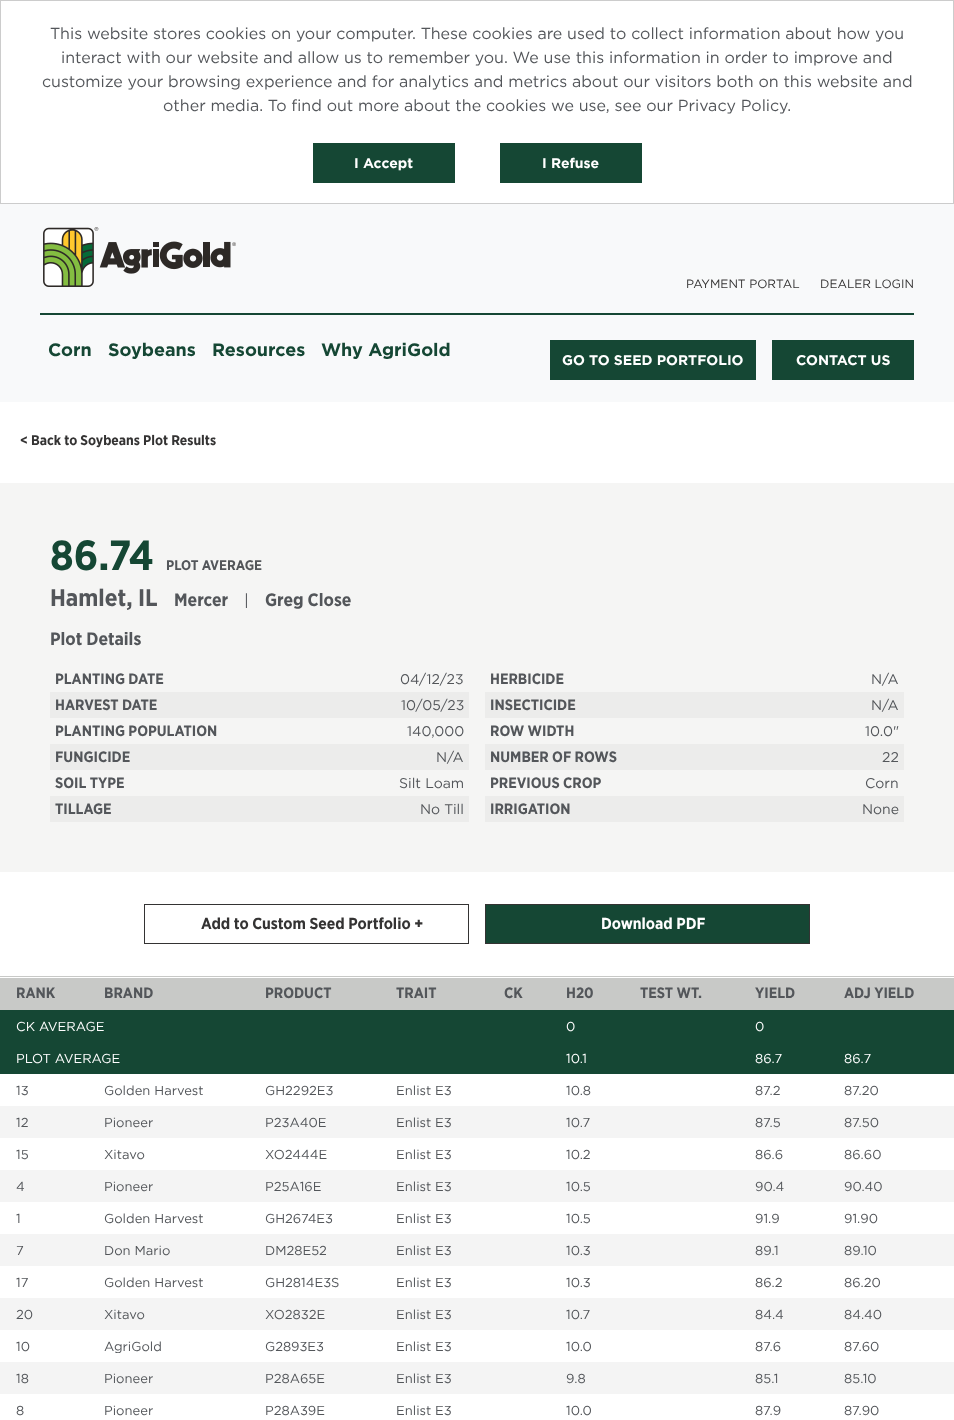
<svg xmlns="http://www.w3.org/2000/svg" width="954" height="1420">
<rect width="100%" height="100%" fill="#fff"/>
<rect x="0.5" y="0.5" width="953" height="203" fill="none" stroke="#ccc"/>
<text x="50" y="39" style="font-family:Gotham;font-size:16px;fill:#53565a">This website stores cookies on your computer. These cookies are used to collect information about how you</text>
<text x="61" y="63" style="font-family:Gotham;font-size:16px;fill:#53565a">interact with our website and allow us to remember you. We use this information in order to improve and</text>
<text x="42" y="87" style="font-family:Gotham;font-size:16px;fill:#53565a">customize your browsing experience and for analytics and metrics about our visitors both on this website and</text>
<text x="163" y="111" style="font-family:Gotham;font-size:16px;fill:#53565a">other media. To find out more about the cookies we use, see our Privacy Policy.</text>
<rect x="313" y="143" width="142" height="40" fill="#154734"/>
<text x="354" y="168" style="font-family:Gotham;font-size:14px;font-weight:bold;fill:#fff">I Accept</text>
<rect x="500" y="143" width="142" height="40" fill="#154734"/>
<text x="542" y="168" style="font-family:Gotham;font-size:14px;font-weight:bold;fill:#fff">I Refuse</text>
<rect y="204" width="954" height="198" fill="#f8f9fa"/>
<image x="43" y="227" width="193" height="60" href="media/1.png"/>
<text x="686" y="288" style="font-family:Gotham;font-size:12px;fill:#343333">PAYMENT PORTAL</text>
<text x="820" y="288" style="font-family:Gotham;font-size:12px;fill:#343333">DEALER LOGIN</text>
<rect x="40" y="313" width="874" height="2" fill="#154734"/>
<text x="48" y="356" style="font-family:Gotham;font-size:18px;font-weight:bold;fill:#154734">Corn</text>
<text x="108" y="356" style="font-family:Gotham;font-size:18px;font-weight:bold;fill:#154734">Soybeans</text>
<text x="212" y="356" style="font-family:Gotham;font-size:18px;font-weight:bold;fill:#154734">Resources</text>
<text x="321" y="356" style="font-family:Gotham;font-size:18px;font-weight:bold;fill:#154734">Why AgriGold</text>
<rect x="550" y="340" width="206" height="40" fill="#154734"/>
<text x="562" y="365" style="font-family:Gotham;font-size:14px;font-weight:bold;fill:#fff">GO TO SEED PORTFOLIO</text>
<rect x="772" y="340" width="142" height="40" fill="#154734"/>
<text x="796" y="365" style="font-family:Gotham;font-size:14px;font-weight:bold;fill:#fff">CONTACT US</text>
<text x="20" y="445" style="font-family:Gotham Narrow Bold;font-size:14px;font-weight:bold;fill:#343333">&lt; Back to Soybeans Plot Results</text>
<rect y="483" width="954" height="389" fill="#f5f5f4"/>
<text x="50" y="570" style="font-family:Gotham Narrow Bold;font-size:42px;font-weight:bold;fill:#154734">86.74</text>
<text x="166" y="570" style="font-family:Gotham Narrow Bold;font-size:14px;font-weight:bold;fill:#53565a">PLOT AVERAGE</text>
<text x="50" y="606" style="font-family:Gotham Narrow Bold;font-size:24px;font-weight:bold;fill:#53565a">Hamlet, IL</text>
<text x="174" y="606" style="font-family:Gotham Narrow Bold;font-size:18px;font-weight:bold;fill:#53565a">Mercer</text>
<text x="244" y="606" style="font-family:Gotham;font-size:16px;fill:#53565a">|</text>
<text x="265" y="606" style="font-family:Gotham Narrow Bold;font-size:18px;font-weight:bold;fill:#53565a">Greg Close</text>
<text x="50" y="645" style="font-family:Gotham Narrow Bold;font-size:18px;font-weight:bold;fill:#53565a">Plot Details</text>
<text x="55" y="684" style="font-family:Gotham Narrow Bold;font-size:15px;font-weight:bold;fill:#53565a">PLANTING DATE</text>
<text x="400" y="684" style="font-family:Gotham;font-size:14px;fill:#53565a">04/12/23</text>
<rect x="50" y="692" width="419" height="26" fill="#ececeb"/>
<text x="55" y="710" style="font-family:Gotham Narrow Bold;font-size:15px;font-weight:bold;fill:#53565a">HARVEST DATE</text>
<text x="401" y="710" style="font-family:Gotham;font-size:14px;fill:#53565a">10/05/23</text>
<text x="55" y="736" style="font-family:Gotham Narrow Bold;font-size:15px;font-weight:bold;fill:#53565a">PLANTING POPULATION</text>
<text x="407" y="736" style="font-family:Gotham;font-size:14px;fill:#53565a">140,000</text>
<rect x="50" y="744" width="419" height="26" fill="#ececeb"/>
<text x="55" y="762" style="font-family:Gotham Narrow Bold;font-size:15px;font-weight:bold;fill:#53565a">FUNGICIDE</text>
<text x="436" y="762" style="font-family:Gotham;font-size:14px;fill:#53565a">N/A</text>
<text x="55" y="788" style="font-family:Gotham Narrow Bold;font-size:15px;font-weight:bold;fill:#53565a">SOIL TYPE</text>
<text x="399" y="788" style="font-family:Gotham;font-size:14px;fill:#53565a">Silt Loam</text>
<rect x="50" y="796" width="419" height="26" fill="#ececeb"/>
<text x="55" y="814" style="font-family:Gotham Narrow Bold;font-size:15px;font-weight:bold;fill:#53565a">TILLAGE</text>
<text x="420" y="814" style="font-family:Gotham;font-size:14px;fill:#53565a">No Till</text>
<text x="490" y="684" style="font-family:Gotham Narrow Bold;font-size:15px;font-weight:bold;fill:#53565a">HERBICIDE</text>
<text x="871" y="684" style="font-family:Gotham;font-size:14px;fill:#53565a">N/A</text>
<rect x="485" y="692" width="419" height="26" fill="#ececeb"/>
<text x="490" y="710" style="font-family:Gotham Narrow Bold;font-size:15px;font-weight:bold;fill:#53565a">INSECTICIDE</text>
<text x="871" y="710" style="font-family:Gotham;font-size:14px;fill:#53565a">N/A</text>
<text x="490" y="736" style="font-family:Gotham Narrow Bold;font-size:15px;font-weight:bold;fill:#53565a">ROW WIDTH</text>
<text x="865" y="736" style="font-family:Gotham;font-size:14px;fill:#53565a">10.0"</text>
<rect x="485" y="744" width="419" height="26" fill="#ececeb"/>
<text x="490" y="762" style="font-family:Gotham Narrow Bold;font-size:15px;font-weight:bold;fill:#53565a">NUMBER OF ROWS</text>
<text x="882" y="762" style="font-family:Gotham;font-size:14px;fill:#53565a">22</text>
<text x="490" y="788" style="font-family:Gotham Narrow Bold;font-size:15px;font-weight:bold;fill:#53565a">PREVIOUS CROP</text>
<text x="865" y="788" style="font-family:Gotham;font-size:14px;fill:#53565a">Corn</text>
<rect x="485" y="796" width="419" height="26" fill="#ececeb"/>
<text x="490" y="814" style="font-family:Gotham Narrow Bold;font-size:15px;font-weight:bold;fill:#53565a">IRRIGATION</text>
<text x="862" y="814" style="font-family:Gotham;font-size:14px;fill:#53565a">None</text>
<rect x="144.5" y="904.5" width="324" height="39" fill="none" stroke="#343333"/>
<text x="201" y="929" style="font-family:Gotham Narrow Bold;font-size:16px;font-weight:bold;fill:#343333">Add to Custom Seed Portfolio +</text>
<rect x="485.5" y="904.5" width="324" height="39" fill="#154734" stroke="#343333"/>
<text x="601" y="929" style="font-family:Gotham Narrow Bold;font-size:16px;font-weight:bold;fill:#fff">Download PDF</text>
<rect y="978" width="954" height="32" fill="#c8c9c7"/>
<rect y="976" width="954" height="1" fill="#c8c9c7"/>
<text x="16" y="998" style="font-family:Gotham Narrow Bold;font-size:15px;font-weight:bold;fill:#53565a">RANK</text>
<text x="104" y="998" style="font-family:Gotham Narrow Bold;font-size:15px;font-weight:bold;fill:#53565a">BRAND</text>
<text x="265" y="998" style="font-family:Gotham Narrow Bold;font-size:15px;font-weight:bold;fill:#53565a">PRODUCT</text>
<text x="396" y="998" style="font-family:Gotham Narrow Bold;font-size:15px;font-weight:bold;fill:#53565a">TRAIT</text>
<text x="504" y="998" style="font-family:Gotham Narrow Bold;font-size:15px;font-weight:bold;fill:#53565a">CK</text>
<text x="566" y="998" style="font-family:Gotham Narrow Bold;font-size:15px;font-weight:bold;fill:#53565a">H20</text>
<text x="640" y="998" style="font-family:Gotham Narrow Bold;font-size:15px;font-weight:bold;fill:#53565a">TEST WT.</text>
<text x="755" y="998" style="font-family:Gotham Narrow Bold;font-size:15px;font-weight:bold;fill:#53565a">YIELD</text>
<text x="844" y="998" style="font-family:Gotham Narrow Bold;font-size:15px;font-weight:bold;fill:#53565a">ADJ YIELD</text>
<rect y="1010" width="954" height="64" fill="#154734"/>
<text x="16" y="1031" style="font-family:Gotham;font-size:13px;fill:#fff">CK AVERAGE</text>
<text x="566" y="1031" style="font-family:Gotham;font-size:13px;fill:#fff">0</text>
<text x="755" y="1031" style="font-family:Gotham;font-size:13px;fill:#fff">0</text>
<text x="16" y="1063" style="font-family:Gotham;font-size:13px;fill:#fff">PLOT AVERAGE</text>
<text x="566" y="1063" style="font-family:Gotham;font-size:13px;fill:#fff">10.1</text>
<text x="755" y="1063" style="font-family:Gotham;font-size:13px;fill:#fff">86.7</text>
<text x="844" y="1063" style="font-family:Gotham;font-size:13px;fill:#fff">86.7</text>
<text x="16" y="1095" style="font-family:Gotham;font-size:13px;fill:#53565a">13</text>
<text x="104" y="1095" style="font-family:Gotham;font-size:13px;fill:#53565a">Golden Harvest</text>
<text x="265" y="1095" style="font-family:Gotham;font-size:13px;fill:#53565a">GH2292E3</text>
<text x="396" y="1095" style="font-family:Gotham;font-size:13px;fill:#53565a">Enlist E3</text>
<text x="566" y="1095" style="font-family:Gotham;font-size:13px;fill:#53565a">10.8</text>
<text x="755" y="1095" style="font-family:Gotham;font-size:13px;fill:#53565a">87.2</text>
<text x="844" y="1095" style="font-family:Gotham;font-size:13px;fill:#53565a">87.20</text>
<rect y="1106" width="954" height="32" fill="#f4f4f4"/>
<text x="16" y="1127" style="font-family:Gotham;font-size:13px;fill:#53565a">12</text>
<text x="104" y="1127" style="font-family:Gotham;font-size:13px;fill:#53565a">Pioneer</text>
<text x="265" y="1127" style="font-family:Gotham;font-size:13px;fill:#53565a">P23A40E</text>
<text x="396" y="1127" style="font-family:Gotham;font-size:13px;fill:#53565a">Enlist E3</text>
<text x="566" y="1127" style="font-family:Gotham;font-size:13px;fill:#53565a">10.7</text>
<text x="755" y="1127" style="font-family:Gotham;font-size:13px;fill:#53565a">87.5</text>
<text x="844" y="1127" style="font-family:Gotham;font-size:13px;fill:#53565a">87.50</text>
<text x="16" y="1159" style="font-family:Gotham;font-size:13px;fill:#53565a">15</text>
<text x="104" y="1159" style="font-family:Gotham;font-size:13px;fill:#53565a">Xitavo</text>
<text x="265" y="1159" style="font-family:Gotham;font-size:13px;fill:#53565a">XO2444E</text>
<text x="396" y="1159" style="font-family:Gotham;font-size:13px;fill:#53565a">Enlist E3</text>
<text x="566" y="1159" style="font-family:Gotham;font-size:13px;fill:#53565a">10.2</text>
<text x="755" y="1159" style="font-family:Gotham;font-size:13px;fill:#53565a">86.6</text>
<text x="844" y="1159" style="font-family:Gotham;font-size:13px;fill:#53565a">86.60</text>
<rect y="1170" width="954" height="32" fill="#f4f4f4"/>
<text x="16" y="1191" style="font-family:Gotham;font-size:13px;fill:#53565a">4</text>
<text x="104" y="1191" style="font-family:Gotham;font-size:13px;fill:#53565a">Pioneer</text>
<text x="265" y="1191" style="font-family:Gotham;font-size:13px;fill:#53565a">P25A16E</text>
<text x="396" y="1191" style="font-family:Gotham;font-size:13px;fill:#53565a">Enlist E3</text>
<text x="566" y="1191" style="font-family:Gotham;font-size:13px;fill:#53565a">10.5</text>
<text x="755" y="1191" style="font-family:Gotham;font-size:13px;fill:#53565a">90.4</text>
<text x="844" y="1191" style="font-family:Gotham;font-size:13px;fill:#53565a">90.40</text>
<text x="16" y="1223" style="font-family:Gotham;font-size:13px;fill:#53565a">1</text>
<text x="104" y="1223" style="font-family:Gotham;font-size:13px;fill:#53565a">Golden Harvest</text>
<text x="265" y="1223" style="font-family:Gotham;font-size:13px;fill:#53565a">GH2674E3</text>
<text x="396" y="1223" style="font-family:Gotham;font-size:13px;fill:#53565a">Enlist E3</text>
<text x="566" y="1223" style="font-family:Gotham;font-size:13px;fill:#53565a">10.5</text>
<text x="755" y="1223" style="font-family:Gotham;font-size:13px;fill:#53565a">91.9</text>
<text x="844" y="1223" style="font-family:Gotham;font-size:13px;fill:#53565a">91.90</text>
<rect y="1234" width="954" height="32" fill="#f4f4f4"/>
<text x="16" y="1255" style="font-family:Gotham;font-size:13px;fill:#53565a">7</text>
<text x="104" y="1255" style="font-family:Gotham;font-size:13px;fill:#53565a">Don Mario</text>
<text x="265" y="1255" style="font-family:Gotham;font-size:13px;fill:#53565a">DM28E52</text>
<text x="396" y="1255" style="font-family:Gotham;font-size:13px;fill:#53565a">Enlist E3</text>
<text x="566" y="1255" style="font-family:Gotham;font-size:13px;fill:#53565a">10.3</text>
<text x="755" y="1255" style="font-family:Gotham;font-size:13px;fill:#53565a">89.1</text>
<text x="844" y="1255" style="font-family:Gotham;font-size:13px;fill:#53565a">89.10</text>
<text x="16" y="1287" style="font-family:Gotham;font-size:13px;fill:#53565a">17</text>
<text x="104" y="1287" style="font-family:Gotham;font-size:13px;fill:#53565a">Golden Harvest</text>
<text x="265" y="1287" style="font-family:Gotham;font-size:13px;fill:#53565a">GH2814E3S</text>
<text x="396" y="1287" style="font-family:Gotham;font-size:13px;fill:#53565a">Enlist E3</text>
<text x="566" y="1287" style="font-family:Gotham;font-size:13px;fill:#53565a">10.3</text>
<text x="755" y="1287" style="font-family:Gotham;font-size:13px;fill:#53565a">86.2</text>
<text x="844" y="1287" style="font-family:Gotham;font-size:13px;fill:#53565a">86.20</text>
<rect y="1298" width="954" height="32" fill="#f4f4f4"/>
<text x="16" y="1319" style="font-family:Gotham;font-size:13px;fill:#53565a">20</text>
<text x="104" y="1319" style="font-family:Gotham;font-size:13px;fill:#53565a">Xitavo</text>
<text x="265" y="1319" style="font-family:Gotham;font-size:13px;fill:#53565a">XO2832E</text>
<text x="396" y="1319" style="font-family:Gotham;font-size:13px;fill:#53565a">Enlist E3</text>
<text x="566" y="1319" style="font-family:Gotham;font-size:13px;fill:#53565a">10.7</text>
<text x="755" y="1319" style="font-family:Gotham;font-size:13px;fill:#53565a">84.4</text>
<text x="844" y="1319" style="font-family:Gotham;font-size:13px;fill:#53565a">84.40</text>
<text x="16" y="1351" style="font-family:Gotham;font-size:13px;fill:#53565a">10</text>
<text x="104" y="1351" style="font-family:Gotham;font-size:13px;fill:#53565a">AgriGold</text>
<text x="265" y="1351" style="font-family:Gotham;font-size:13px;fill:#53565a">G2893E3</text>
<text x="396" y="1351" style="font-family:Gotham;font-size:13px;fill:#53565a">Enlist E3</text>
<text x="566" y="1351" style="font-family:Gotham;font-size:13px;fill:#53565a">10.0</text>
<text x="755" y="1351" style="font-family:Gotham;font-size:13px;fill:#53565a">87.6</text>
<text x="844" y="1351" style="font-family:Gotham;font-size:13px;fill:#53565a">87.60</text>
<rect y="1362" width="954" height="32" fill="#f4f4f4"/>
<text x="16" y="1383" style="font-family:Gotham;font-size:13px;fill:#53565a">18</text>
<text x="104" y="1383" style="font-family:Gotham;font-size:13px;fill:#53565a">Pioneer</text>
<text x="265" y="1383" style="font-family:Gotham;font-size:13px;fill:#53565a">P28A65E</text>
<text x="396" y="1383" style="font-family:Gotham;font-size:13px;fill:#53565a">Enlist E3</text>
<text x="566" y="1383" style="font-family:Gotham;font-size:13px;fill:#53565a">9.8</text>
<text x="755" y="1383" style="font-family:Gotham;font-size:13px;fill:#53565a">85.1</text>
<text x="844" y="1383" style="font-family:Gotham;font-size:13px;fill:#53565a">85.10</text>
<text x="16" y="1415" style="font-family:Gotham;font-size:13px;fill:#53565a">8</text>
<text x="104" y="1415" style="font-family:Gotham;font-size:13px;fill:#53565a">Pioneer</text>
<text x="265" y="1415" style="font-family:Gotham;font-size:13px;fill:#53565a">P28A39E</text>
<text x="396" y="1415" style="font-family:Gotham;font-size:13px;fill:#53565a">Enlist E3</text>
<text x="566" y="1415" style="font-family:Gotham;font-size:13px;fill:#53565a">10.0</text>
<text x="755" y="1415" style="font-family:Gotham;font-size:13px;fill:#53565a">87.9</text>
<text x="844" y="1415" style="font-family:Gotham;font-size:13px;fill:#53565a">87.90</text>
</svg>
